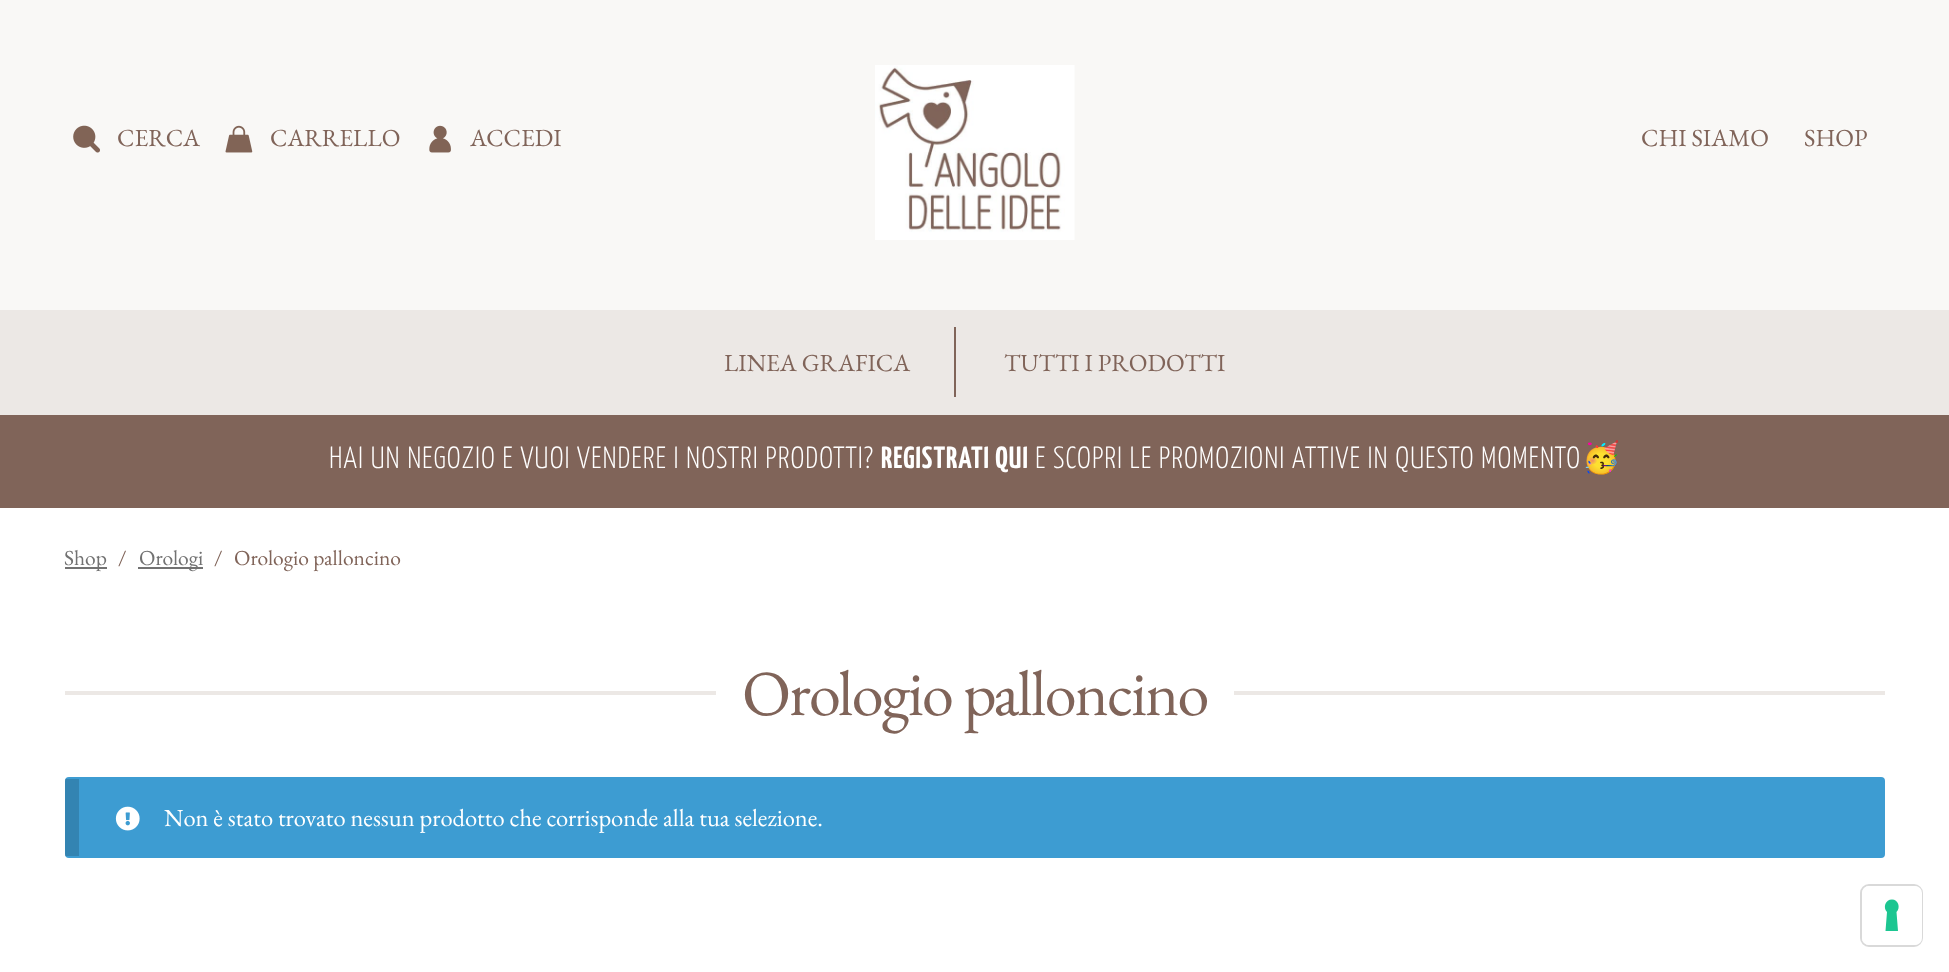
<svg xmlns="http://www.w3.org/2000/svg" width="1949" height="972">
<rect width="100%" height="100%" fill="#fff"/>
<rect width="1949" height="310" fill="#f9f8f6"/>
<image x="73" y="125" width="27" height="28" href="media/1.png"/>
<text x="117" y="146" style="font-family:EB Garamond;font-size:24.5px;fill:#806459">CERCA</text>
<image x="225" y="125" width="28" height="28" href="media/2.png"/>
<text x="270" y="146" style="font-family:EB Garamond;font-size:24.5px;fill:#806459">CARRELLO</text>
<image x="429" y="125" width="22" height="28" href="media/3.png"/>
<text x="470" y="146" style="font-family:EB Garamond;font-size:24.5px;fill:#806459">ACCEDI</text>
<image x="875" y="65" width="200" height="175" href="media/4.png"/>
<text x="1641" y="146" style="font-family:EB Garamond;font-size:24.5px;fill:#806459">CHI SIAMO</text>
<text x="1804" y="146" style="font-family:EB Garamond;font-size:24.5px;fill:#806459">SHOP</text>
<rect y="310" width="1949" height="105" fill="#ece8e5"/>
<rect x="954" y="327" width="2" height="70" fill="#806459"/>
<text x="724" y="371" style="font-family:EB Garamond;font-size:24.5px;fill:#806459">LINEA GRAFICA</text>
<text x="1004" y="371" style="font-family:EB Garamond;font-size:24.5px;fill:#806459">TUTTI I PRODOTTI</text>
<rect y="415" width="1949" height="93" fill="#806459"/>
<text x="329" y="468" style="font-family:Yanone Kaffeesatz;font-size:30.6px;font-weight:300;letter-spacing:1.05px;fill:#fff">HAI UN NEGOZIO E VUOI VENDERE I NOSTRI PRODOTTI?</text>
<text x="881" y="468" style="font-family:Yanone Kaffeesatz;font-size:30.6px;font-weight:bold;letter-spacing:1.05px;fill:#fff">REGISTRATI QUI</text>
<text x="1035" y="468" style="font-family:Yanone Kaffeesatz;font-size:30.6px;font-weight:300;letter-spacing:1.05px;fill:#fff">E SCOPRI LE PROMOZIONI ATTIVE IN QUESTO MOMENTO</text>
<text x="1582" y="468" style="font-family:Noto Color Emoji;font-size:30.6px;letter-spacing:1.05px;fill:#fff">🥳</text>
<rect x="65" y="567" width="42" height="2" fill="#727272"/>
<text x="64" y="565" style="font-family:EB Garamond;font-size:21.5px;fill:#727272">Shop</text>
<text x="118" y="565" style="font-family:EB Garamond;font-size:21.5px;fill:#806459">/</text>
<rect x="138" y="567" width="65" height="2" fill="#727272"/>
<text x="139" y="565" style="font-family:EB Garamond;font-size:21.5px;fill:#727272">Orologi</text>
<text x="214" y="565" style="font-family:EB Garamond;font-size:21.5px;fill:#806459">/</text>
<text x="234" y="565" style="font-family:EB Garamond;font-size:21.5px;fill:#806459">Orologio palloncino</text>
<rect x="65" y="691" width="651" height="4" fill="#ece8e5"/>
<text x="742" y="715" style="font-family:EB Garamond;font-size:64.25px;letter-spacing:-1.75px;fill:#806459">Orologio palloncino</text>
<rect x="1234" y="691" width="651" height="4" fill="#ece8e5"/>
<rect x="65" y="777" width="1820" height="81" rx="4" fill="#3d9cd2"/>
<rect x="65" y="779" width="14" height="77" fill="#00000026"/>
<image x="115" y="806" width="25" height="25" href="media/5.png"/>
<text x="164" y="826" style="font-family:EB Garamond;font-size:24.5px;fill:#fff">Non è stato trovato nessun prodotto che corrisponde alla tua selezione.</text>
<rect x="1861" y="885" width="61" height="61" rx="8" fill="none" stroke="#d9d9d9" stroke-width="2"/>
<rect x="1862" y="886" width="60" height="59" rx="7" fill="#fff"/>
<path d="M1892 899.5c6 0 9 8 4.5 12.5l1.5 19h-12.5l1.5-19c-4.5-4.5-1.5-12.5 5-12.5z" fill="#1cc691" fill-rule="evenodd"/>
</svg>
